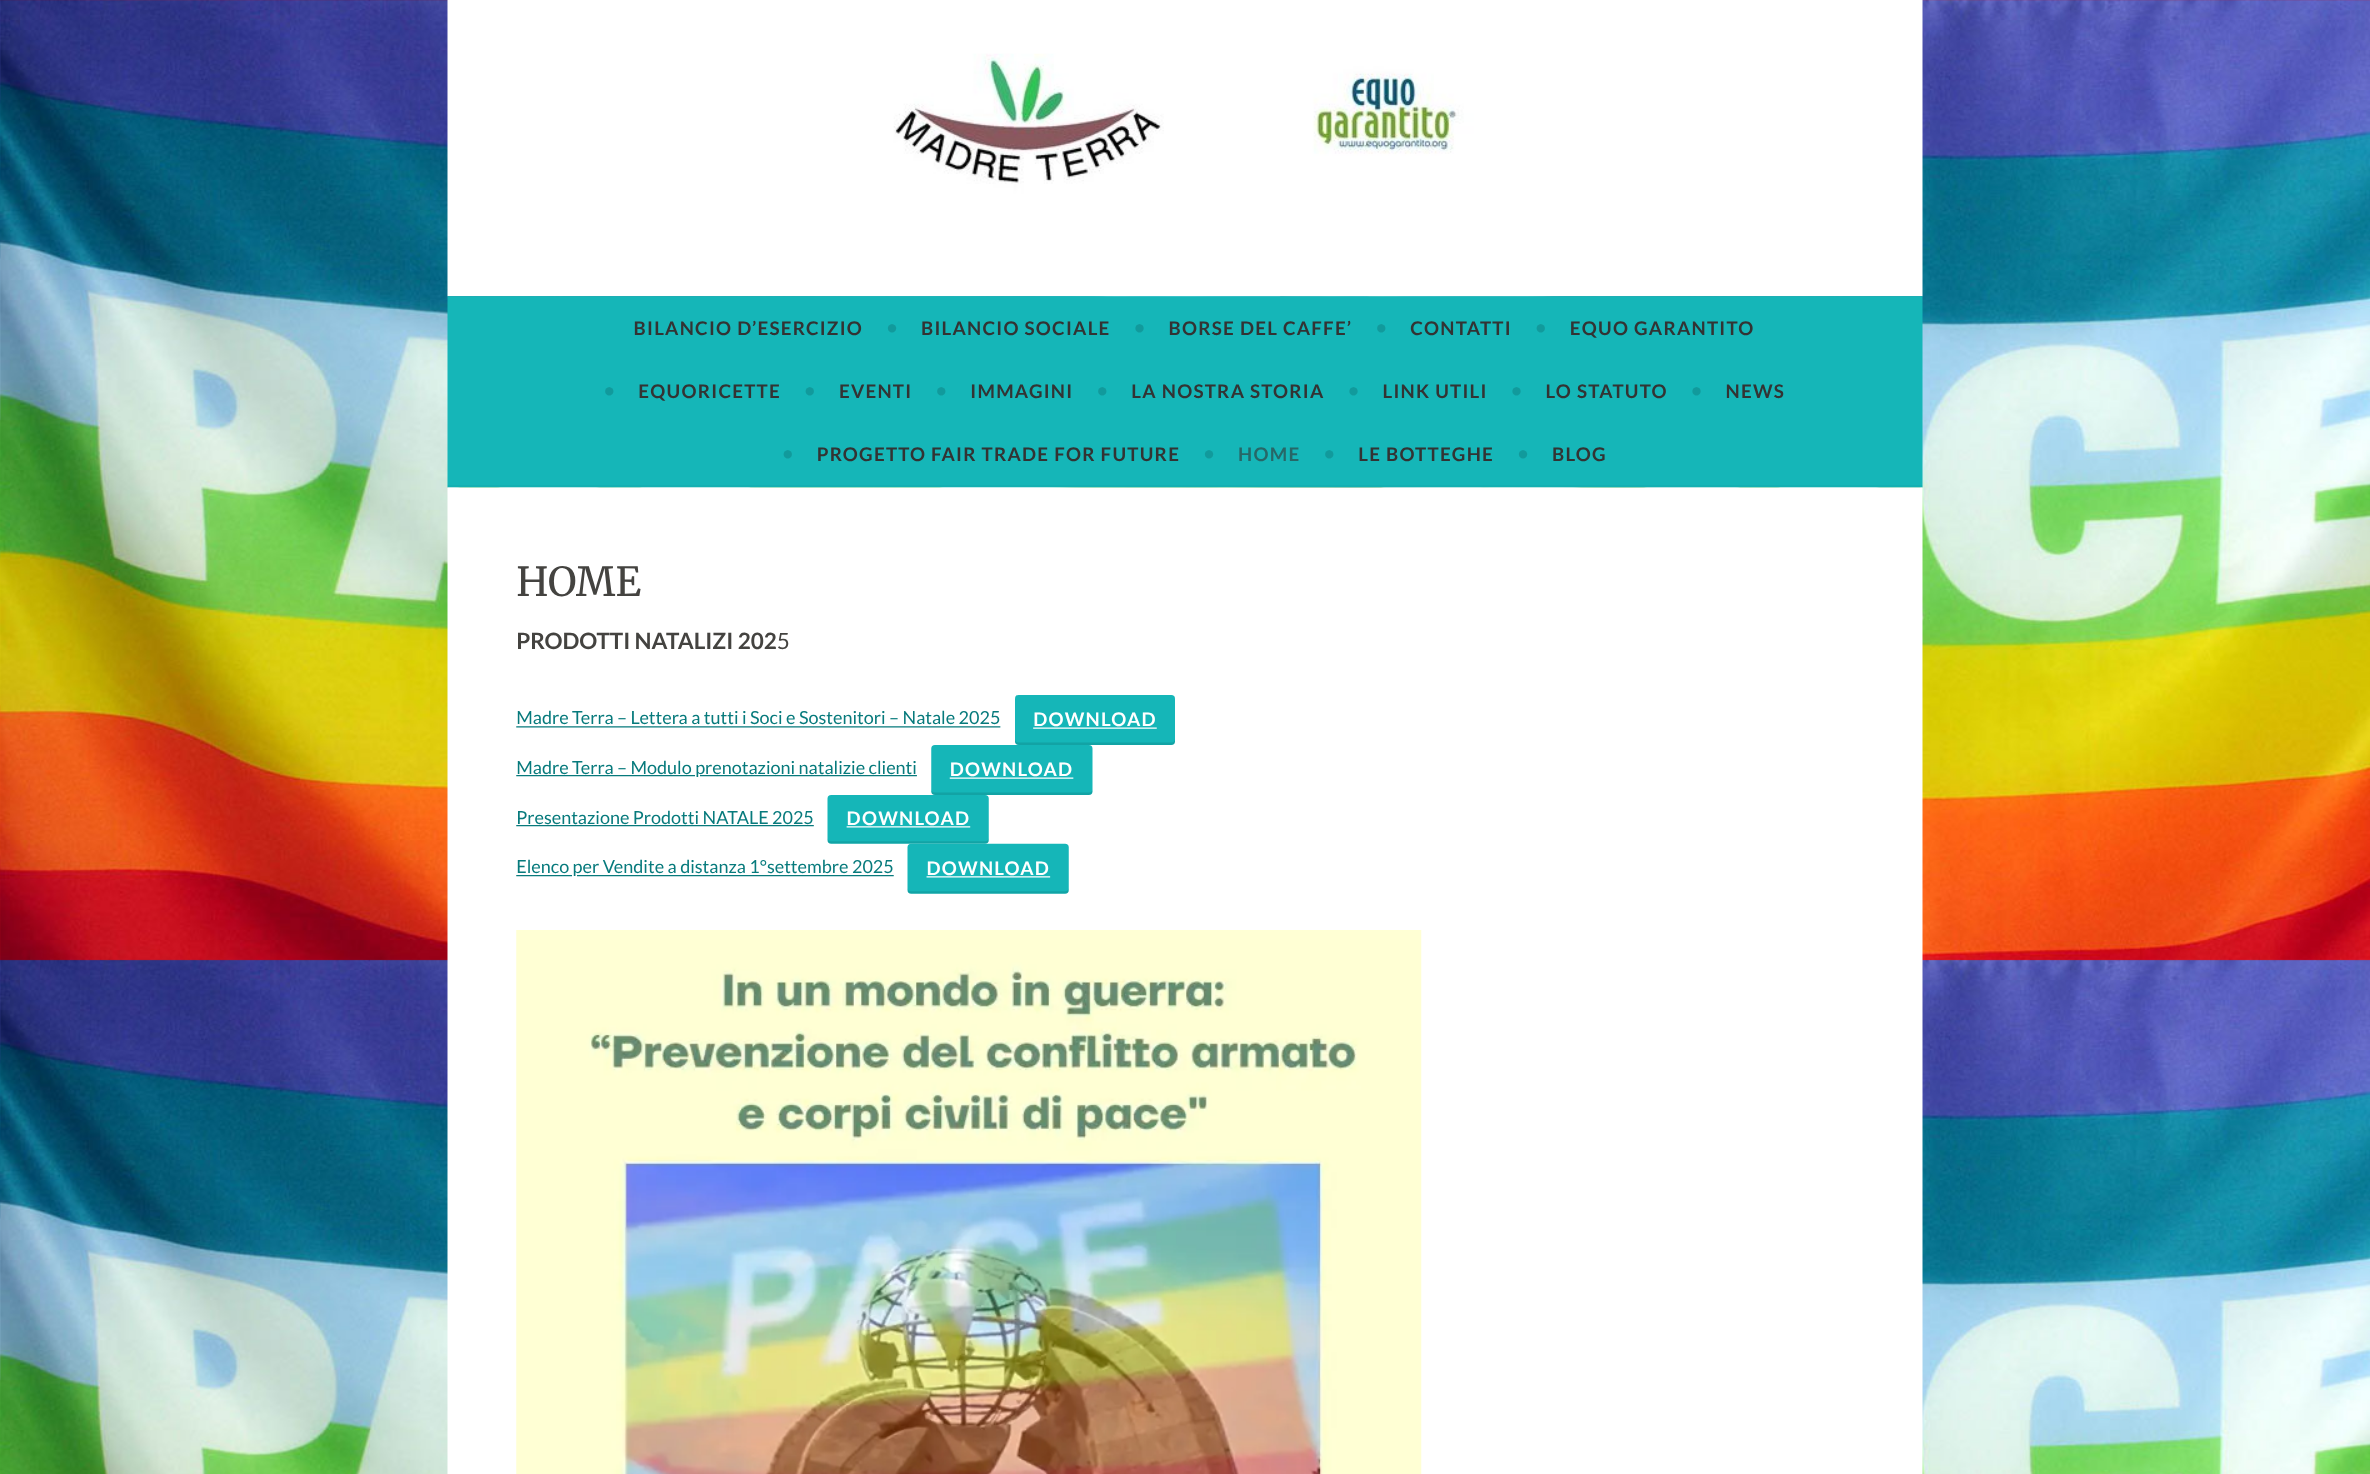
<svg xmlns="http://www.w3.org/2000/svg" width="2370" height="1474">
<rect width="100%" height="100%" fill="#fff"/>
<image x="0" y="0" width="2370" height="1474" href="media/1.png"/>
</svg>
